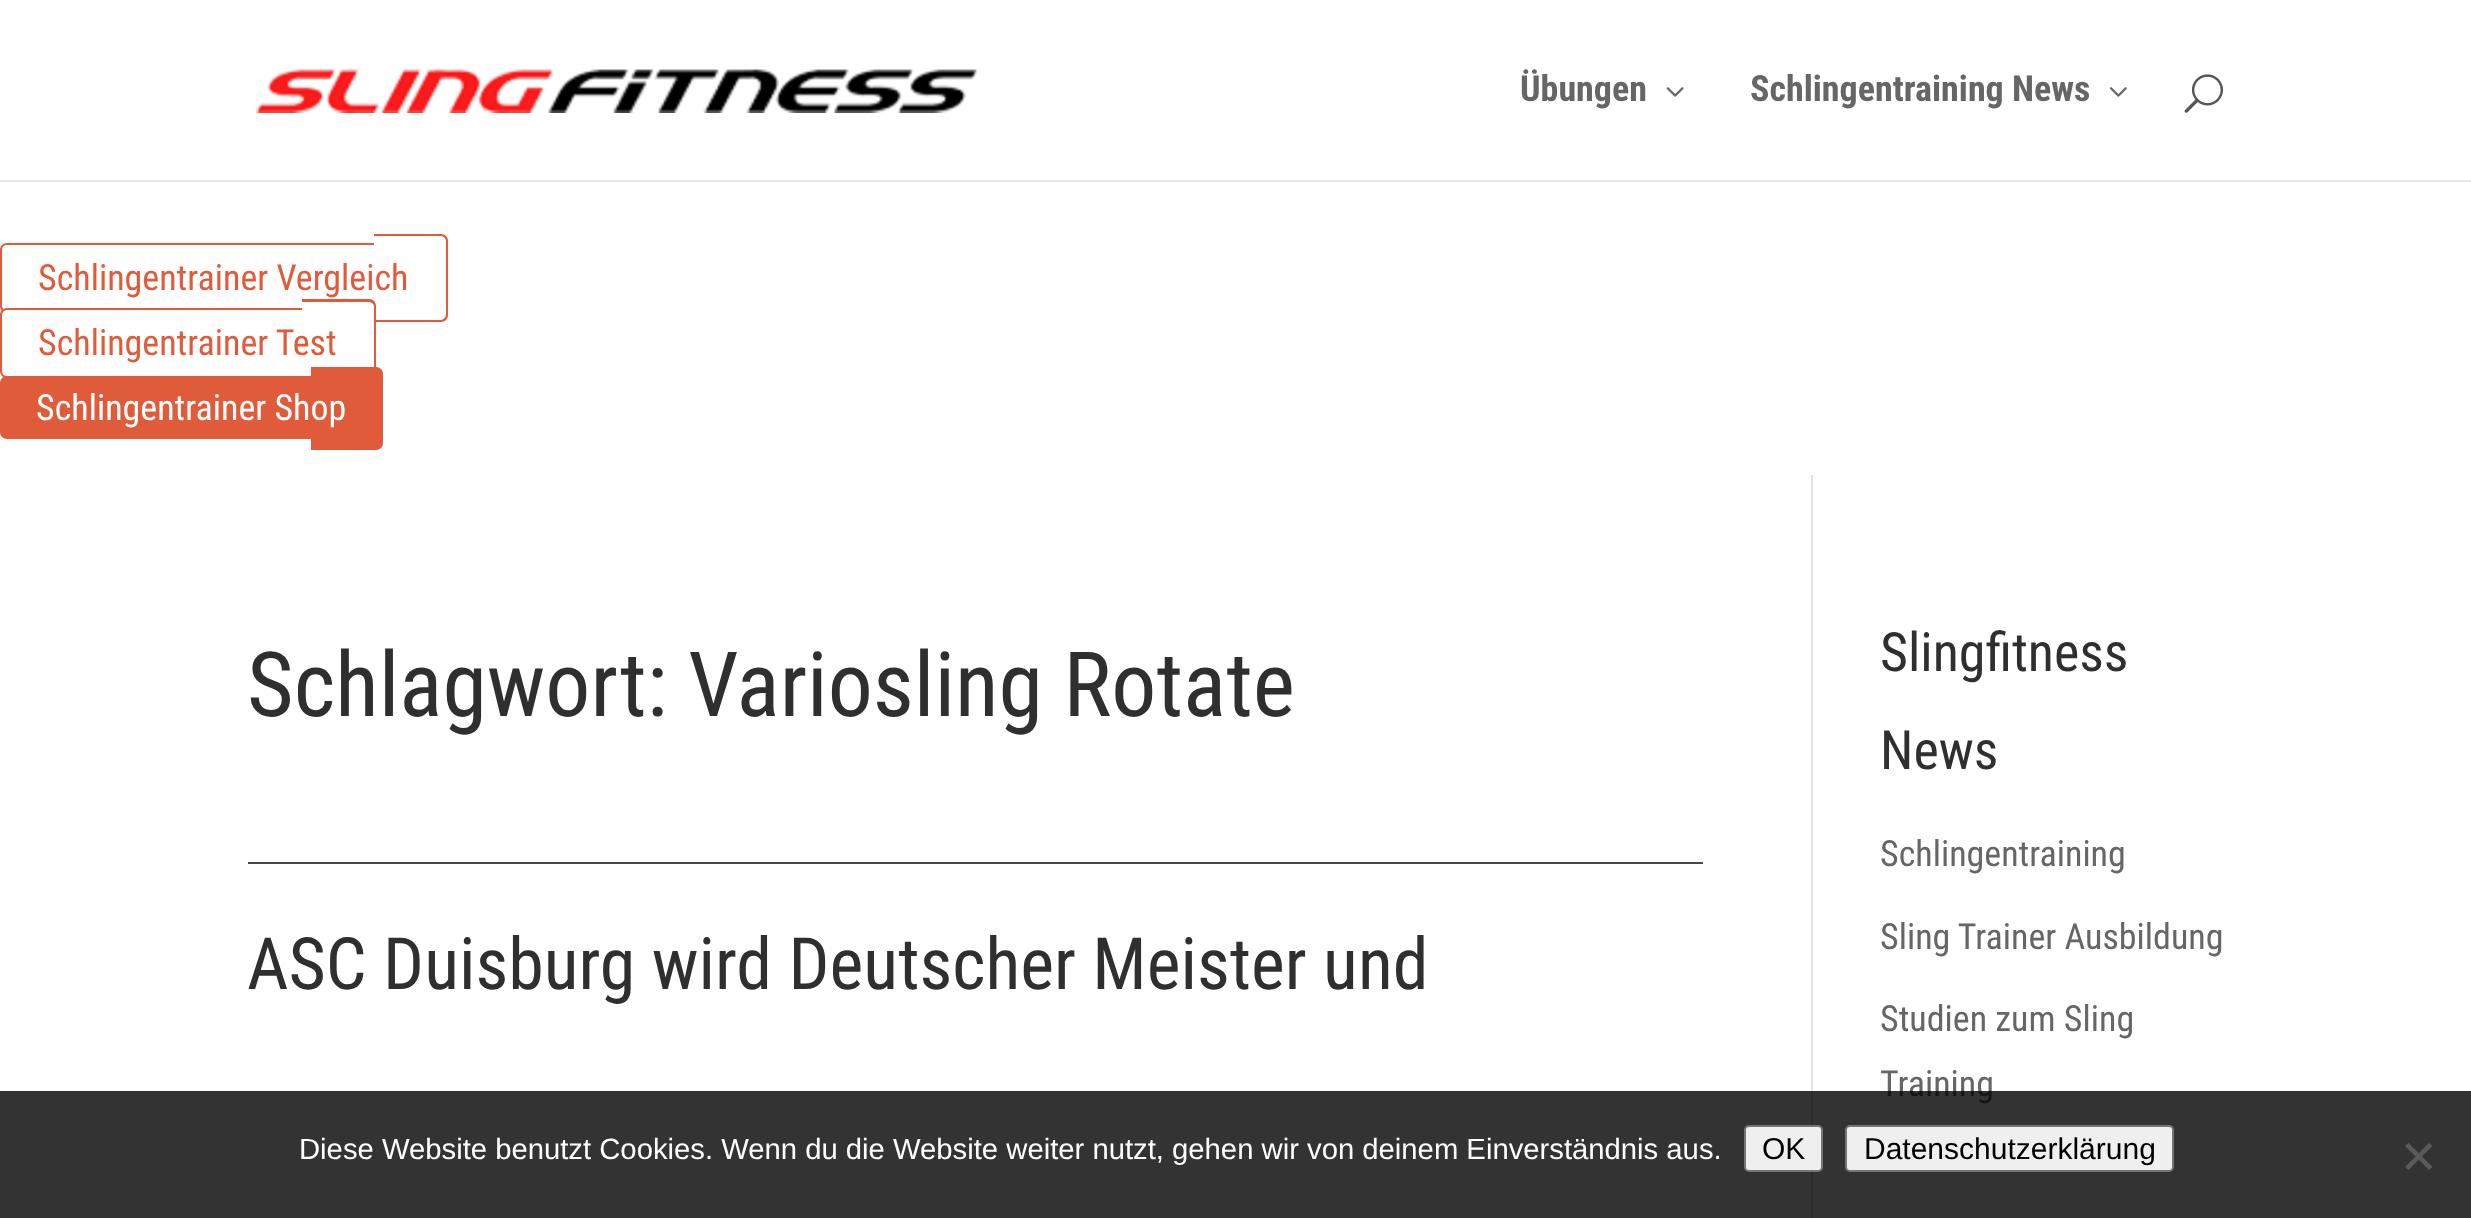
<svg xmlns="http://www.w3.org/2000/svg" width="2471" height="1218">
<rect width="100%" height="100%" fill="#fff"/>
<path d="M0 180v2h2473v-180v178z" fill="#e6e6e6"/>
<image x="256" y="69" width="721" height="44" href="media/1.png"/>
<text x="1520" y="101" style="font-family:Roboto Condensed;font-size:36px;font-weight:bold;fill:#666">Übungen</text>
<image x="1666" y="87" width="18" height="10" href="media/2.png"/>
<text x="1750" y="101" style="font-family:Roboto Condensed;font-size:36px;font-weight:bold;fill:#666">Schlingentraining News</text>
<image x="2110" y="87" width="17" height="10" href="media/3.png"/>
<image x="2184" y="74" width="39" height="39" href="media/4.png"/>
<path d="M7 243h403v70h-403c-4 0-7-3-7-7v-56c0-4 3-7 7-7zm0 2h403v65h-403c-3 0-5-2-5-4v-56c0-3 2-5 5-5z" fill="#e05b3a" fill-rule="evenodd"/>
<path d="M374 234h67c4 0 7 3 7 7v74c0 4-3 7-7 7h-67z" fill="#fff"/>
<path d="M374 234h67c4 0 7 3 7 7v74c0 4-3 7-7 7h-67zm0 2h67c2 0 5 2 5 5v74c0 2-3 5-5 5h-67z" fill="#e05b3a" fill-rule="evenodd"/>
<text x="38" y="290" style="font-family:Roboto Condensed;font-size:36px;fill:#e05b3a">Schlingentrainer Vergleich</text>
<path d="M7 308h331v70h-331c-4 0-7-3-7-7v-56c0-4 3-7 7-7z" fill="#fff"/>
<path d="M7 308h331v70h-331c-4 0-7-3-7-7v-56c0-4 3-7 7-7zm0 2h331v66h-331c-3 0-5-2-5-5v-56c0-2 2-5 5-5z" fill="#e05b3a" fill-rule="evenodd"/>
<path d="M302 299h67c4 0 7 3 7 7v74c0 4-3 7-7 7h-67z" fill="#fff"/>
<path d="M302 299h67c4 0 7 3 7 7v74c0 4-3 7-7 7h-67zm0 3h67c2 0 5 2 5 4v74c0 3-3 5-5 5h-67z" fill="#e05b3a" fill-rule="evenodd"/>
<text x="38" y="355" style="font-family:Roboto Condensed;font-size:36px;fill:#e05b3a">Schlingentrainer Test</text>
<path d="M7 376h340v63h-340c-4 0-7-3-7-7v-49c0-4 3-7 7-7z" fill="#e05b3a"/>
<path d="M311 367h65c4 0 7 3 7 7v69c0 4-3 7-7 7h-65z" fill="#e05b3a"/>
<text x="36" y="420" style="font-family:Roboto Condensed;font-size:36px;fill:#fff">Schlingentrainer Shop</text>
<rect x="1811" y="475" width="2" height="743" fill="#e2e2e2"/>
<text x="247" y="716" style="font-family:Roboto Condensed;font-size:90px;fill:#2f2f2f">Schlagwort: Variosling Rotate</text>
<rect x="248" y="862" width="1455" height="2" fill="#47474c"/>
<text x="247" y="989" style="font-family:Roboto Condensed;font-size:72px;fill:#2f2f2f">ASC Duisburg wird Deutscher Meister und</text>
<text x="1880" y="671" style="font-family:Roboto Condensed;font-size:54px;fill:#2f2f2f">Slingfitness</text>
<text x="1880" y="769" style="font-family:Roboto Condensed;font-size:54px;fill:#2f2f2f">News</text>
<text x="1880" y="866" style="font-family:Roboto Condensed;font-size:36px;fill:#666">Schlingentraining</text>
<text x="1880" y="949" style="font-family:Roboto Condensed;font-size:36px;fill:#666">Sling Trainer Ausbildung</text>
<text x="1880" y="1031" style="font-family:Roboto Condensed;font-size:36px;fill:#666">Studien zum Sling</text>
<text x="1880" y="1096" style="font-family:Roboto Condensed;font-size:36px;fill:#666">Training</text>
<rect y="1091" width="2471" height="127" fill="#000000cc"/>
<text x="299" y="1159" style="font-family:Liberation Sans;font-size:29.25px;fill:#fff">Diese Website benutzt Cookies. Wenn du die Website weiter nutzt, gehen wir von deinem Einverständnis aus.</text>
<rect x="1745" y="1126" width="77" height="45" rx="4" fill="#efefef" stroke="#767676" stroke-width="2"/>
<text x="1762" y="1159" style="font-family:Liberation Sans;font-size:30px;fill:#000">OK</text>
<rect x="1846" y="1126" width="327" height="45" rx="4" fill="#efefef" stroke="#767676" stroke-width="2"/>
<text x="1864" y="1159" style="font-family:Liberation Sans;font-size:30px;fill:#000">Datenschutzerklärung</text>
<path d="M2429 1143l3.5 3l-24 24l-3.5-3z" fill="#5a5a5a"/>
<path d="M2405 1146l3.5-3l24 24l-3.5 3z" fill="#5a5a5a"/>
</svg>
